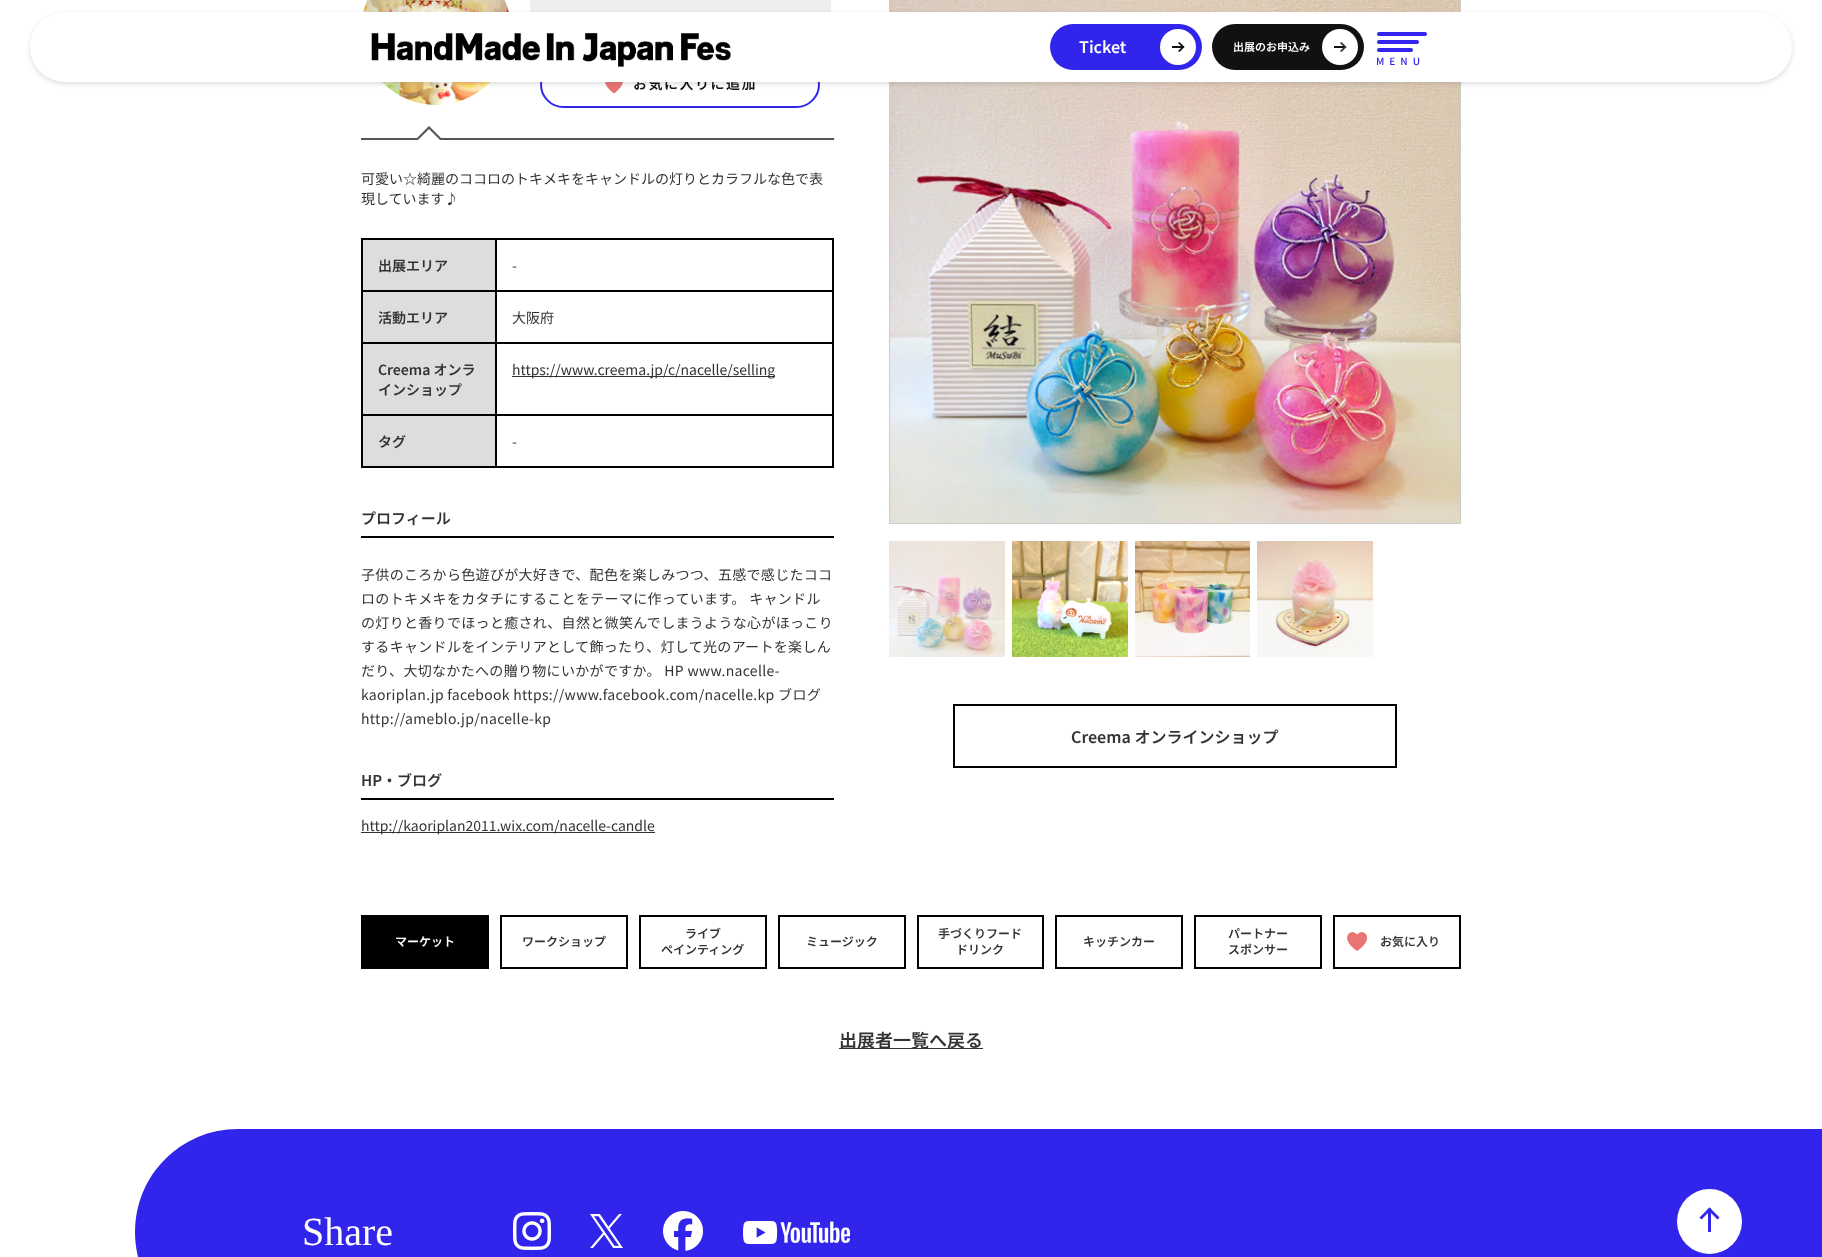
<svg xmlns="http://www.w3.org/2000/svg" width="1822" height="1257">
<rect width="100%" height="100%" fill="#fff"/>
<image x="363" y="0" width="146" height="105" href="media/2.png"/>
<rect x="530" width="301" height="12" fill="#eee"/>
<rect x="541" y="62" width="278" height="45" rx="22.5" fill="none" stroke="#3124eb" stroke-width="2"/>
<image x="605" y="82" width="18" height="11" href="media/3.png"/>
<rect x="889.5" y="-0.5" width="571" height="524" fill="none" stroke="#ccc"/>
<image x="890" y="0" width="570" height="523" href="media/4.png"/>
<rect x="30" y="14" width="1762" height="70" rx="35" fill="#51515133" filter="blur(2.5px)"/>
<text x="633" y="89" style="font-family:'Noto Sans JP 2';font-size:14px;font-weight:100;letter-spacing:1.5px;fill:#111">お気に入りに追加</text>
<rect x="30" y="12" width="1762" height="70" rx="35" fill="#fff"/>
<image x="371" y="33" width="360" height="34" href="media/1.png"/>
<rect x="1050" y="24" width="152" height="46" rx="23" fill="#3124eb"/>
<circle cx="1178" cy="47" r="18" fill="#fff"/>
<text x="1079" y="53" style="font-family:'Noto Sans JP 2';font-size:16px;font-weight:100;fill:#fff">Ticket</text>
<rect x="1172" y="46" width="12" height="2" fill="#111"/>
<path d="M1179.5 42l5 5l-1.5 1l-5-5z" fill="#111"/>
<path d="M1178 51l5-5l1.5 1l-5 5z" fill="#111"/>
<rect x="1212" y="24" width="152" height="46" rx="23" fill="#111"/>
<circle cx="1340" cy="47" r="18" fill="#fff"/>
<text x="1233" y="51" style="font-family:'Noto Sans JP 2';font-size:11px;font-weight:100;fill:#fff">出展のお申込み</text>
<rect x="1334" y="46" width="12" height="2" fill="#111"/>
<path d="M1341.5 42l5 5l-1.5 1l-5-5z" fill="#333"/>
<path d="M1340 51l5-5l1.5 1l-5 5z" fill="#333"/>
<rect x="1377" y="40" width="42" height="4" rx="2" fill="#3124eb"/>
<rect x="1377" y="32" width="50" height="4" rx="2" fill="#3124eb"/>
<rect x="1377" y="48" width="36" height="4" rx="2" fill="#3124eb"/>
<text x="1376" y="65" style="font-family:'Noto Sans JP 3';font-size:10px;font-weight:100;letter-spacing:5px;fill:#3124eb">MENU</text>
<rect x="361" y="138" width="473" height="2" fill="#555"/>
<path d="M443 140h-28l14-14z" fill="#555"/>
<path d="M441 141h-24l12-12z" fill="#fff"/>
<text x="361" y="184" style="font-family:Noto Sans JP;font-size:14px;font-weight:100;fill:#333">可愛い☆綺麗のココロのトキメキをキャンドルの灯りとカラフルな色で表</text>
<text x="361" y="204" style="font-family:Noto Sans JP;font-size:14px;font-weight:100;fill:#333">現しています♪</text>
<rect x="361" y="238" width="473" height="2" fill="#000"/>
<rect x="363" y="240" width="132" height="50" fill="#ddd"/>
<rect x="495" y="240" width="2" height="228" fill="#000"/>
<rect x="361" y="290" width="136" height="2" fill="#000"/>
<rect x="361" y="240" width="2" height="52" fill="#000"/>
<text x="378" y="271" style="font-family:'Noto Sans JP 2';font-size:14px;font-weight:100;fill:#333">出展エリア</text>
<rect x="832" y="240" width="2" height="228" fill="#000"/>
<rect x="497" y="290" width="337" height="2" fill="#000"/>
<text x="512" y="271" style="font-family:Noto Sans JP;font-size:14px;font-weight:100;fill:#333">-</text>
<rect x="363" y="292" width="132" height="50" fill="#ddd"/>
<rect x="361" y="342" width="473" height="2" fill="#000"/>
<rect x="361" y="292" width="2" height="52" fill="#000"/>
<text x="378" y="323" style="font-family:'Noto Sans JP 2';font-size:14px;font-weight:100;fill:#333">活動エリア</text>
<text x="512" y="323" style="font-family:Noto Sans JP;font-size:14px;font-weight:100;fill:#333">大阪府</text>
<rect x="363" y="344" width="132" height="70" fill="#ddd"/>
<rect x="361" y="414" width="473" height="2" fill="#000"/>
<rect x="361" y="344" width="2" height="72" fill="#000"/>
<text x="378" y="375" style="font-family:'Noto Sans JP 2';font-size:14px;font-weight:100;fill:#333">Creema オンラ</text>
<text x="378" y="395" style="font-family:'Noto Sans JP 2';font-size:14px;font-weight:100;fill:#333">インショップ</text>
<rect x="512" y="376" width="263" height="1" fill="#333"/>
<text x="512" y="375" style="font-family:Noto Sans JP;font-size:14px;font-weight:100;fill:#333">https://www.creema.jp/c/nacelle/selling</text>
<rect x="363" y="416" width="132" height="50" fill="#ddd"/>
<rect x="361" y="466" width="473" height="2" fill="#000"/>
<rect x="361" y="416" width="2" height="52" fill="#000"/>
<text x="378" y="447" style="font-family:'Noto Sans JP 2';font-size:14px;font-weight:100;fill:#333">タグ</text>
<text x="512" y="447" style="font-family:Noto Sans JP;font-size:14px;font-weight:100;fill:#333">-</text>
<rect x="361" y="536" width="473" height="2" fill="#000"/>
<text x="361" y="524" style="font-family:'Noto Sans JP 2';font-size:15px;font-weight:100;fill:#333">プロフィール</text>
<text x="361" y="580" style="font-family:Noto Sans JP;font-size:14px;font-weight:100;letter-spacing:0.32px;fill:#333">子供のころから色遊びが大好きで、配色を楽しみつつ、五感で感じたココ</text>
<text x="361" y="604" style="font-family:Noto Sans JP;font-size:14px;font-weight:100;letter-spacing:0.32px;fill:#333">ロのトキメキをカタチにすることをテーマに作っています。 キャンドル</text>
<text x="361" y="628" style="font-family:Noto Sans JP;font-size:14px;font-weight:100;letter-spacing:0.32px;fill:#333">の灯りと香りでほっと癒され、自然と微笑んでしまうような心がほっこり</text>
<text x="361" y="652" style="font-family:Noto Sans JP;font-size:14px;font-weight:100;letter-spacing:0.32px;fill:#333">するキャンドルをインテリアとして飾ったり、灯して光のアートを楽しん</text>
<text x="361" y="676" style="font-family:Noto Sans JP;font-size:14px;font-weight:100;letter-spacing:0.32px;fill:#333">だり、大切なかたへの贈り物にいかがですか。 HP www.nacelle-</text>
<text x="361" y="700" style="font-family:Noto Sans JP;font-size:14px;font-weight:100;letter-spacing:0.32px;fill:#333">kaoriplan.jp facebook https://www.facebook.com/nacelle.kp ブログ</text>
<text x="361" y="724" style="font-family:Noto Sans JP;font-size:14px;font-weight:100;letter-spacing:0.32px;fill:#333">http://ameblo.jp/nacelle-kp</text>
<rect x="361" y="798" width="473" height="2" fill="#000"/>
<text x="361" y="786" style="font-family:'Noto Sans JP 2';font-size:15px;font-weight:100;fill:#333">HP・ブログ</text>
<rect x="361" y="832" width="294" height="1" fill="#333"/>
<text x="361" y="831" style="font-family:Noto Sans JP;font-size:14px;font-weight:100;fill:#333">http://kaoriplan2011.wix.com/nacelle-candle</text>
<image x="889" y="541" width="116" height="116" href="media/5.png"/>
<image x="1012" y="541" width="116" height="116" href="media/6.png"/>
<image x="1135" y="541" width="115" height="116" href="media/7.png"/>
<image x="1257" y="541" width="116" height="116" href="media/8.png"/>
<rect x="954" y="705" width="442" height="62" fill="none" stroke="#000" stroke-width="2"/>
<text x="1071" y="743" style="font-family:'Noto Sans JP 2';font-size:16px;font-weight:100;fill:#333">Creema オンラインショップ</text>
<rect x="361" y="915" width="128" height="54" fill="#000"/>
<text x="395" y="946" style="font-family:'Noto Sans JP 2';font-size:12px;font-weight:100;fill:#fff">マーケット</text>
<rect x="501" y="916" width="126" height="52" fill="none" stroke="#000" stroke-width="2"/>
<text x="522" y="946" style="font-family:'Noto Sans JP 2';font-size:12px;font-weight:100;fill:#333">ワークショップ</text>
<rect x="640" y="916" width="126" height="52" fill="none" stroke="#000" stroke-width="2"/>
<text x="685" y="938" style="font-family:'Noto Sans JP 2';font-size:12px;font-weight:100;fill:#333">ライブ</text>
<text x="661" y="954" style="font-family:'Noto Sans JP 2';font-size:12px;font-weight:100;fill:#333">ペインティング</text>
<rect x="779" y="916" width="126" height="52" fill="none" stroke="#000" stroke-width="2"/>
<text x="806" y="946" style="font-family:'Noto Sans JP 2';font-size:12px;font-weight:100;fill:#333">ミュージック</text>
<rect x="918" y="916" width="125" height="52" fill="none" stroke="#000" stroke-width="2"/>
<text x="938" y="938" style="font-family:'Noto Sans JP 2';font-size:12px;font-weight:100;fill:#333">手づくりフード</text>
<text x="956" y="954" style="font-family:'Noto Sans JP 2';font-size:12px;font-weight:100;fill:#333">ドリンク</text>
<rect x="1056" y="916" width="126" height="52" fill="none" stroke="#000" stroke-width="2"/>
<text x="1083" y="946" style="font-family:'Noto Sans JP 2';font-size:12px;font-weight:100;fill:#333">キッチンカー</text>
<rect x="1195" y="916" width="126" height="52" fill="none" stroke="#000" stroke-width="2"/>
<text x="1228" y="938" style="font-family:'Noto Sans JP 2';font-size:12px;font-weight:100;fill:#333">パートナー</text>
<text x="1228" y="954" style="font-family:'Noto Sans JP 2';font-size:12px;font-weight:100;fill:#333">スポンサー</text>
<rect x="1334" y="916" width="126" height="52" fill="none" stroke="#000" stroke-width="2"/>
<image x="1347" y="932" width="21" height="19" href="media/9.png"/>
<text x="1380" y="946" style="font-family:'Noto Sans JP 2';font-size:12px;font-weight:100;fill:#333">お気に入り</text>
<rect x="839" y="1048" width="144" height="1" fill="#333"/>
<text x="839" y="1047" style="font-family:'Noto Sans JP 2';font-size:18px;font-weight:100;fill:#333">出展者一覧へ戻る</text>
<path d="M238 1129h1584v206h-1584c-57 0-103-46-103-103c0-57 46-103 103-103z" fill="#3124eb"/>
<text x="302" y="1245" style="font-family:Liberation Serif;font-size:40px;fill:#fff">Share</text>
<image x="513" y="1212" width="38" height="38" href="media/10.png"/>
<image x="590" y="1214" width="33" height="34" href="media/11.png"/>
<image x="663" y="1211" width="40" height="40" href="media/12.png"/>
<image x="743" y="1221" width="107" height="23" href="media/13.png"/>
<circle cx="1709.5" cy="1221.5" r="32.5" fill="#fff"/>
<rect x="1708" y="1211" width="3" height="21" fill="#3124eb"/>
<path d="M1699.5 1217.5l10-10l2 2l-10 10z" fill="#3124eb"/>
<path d="M1717.5 1219.5l-10-10l2-2l10 10z" fill="#3124eb"/>
</svg>
